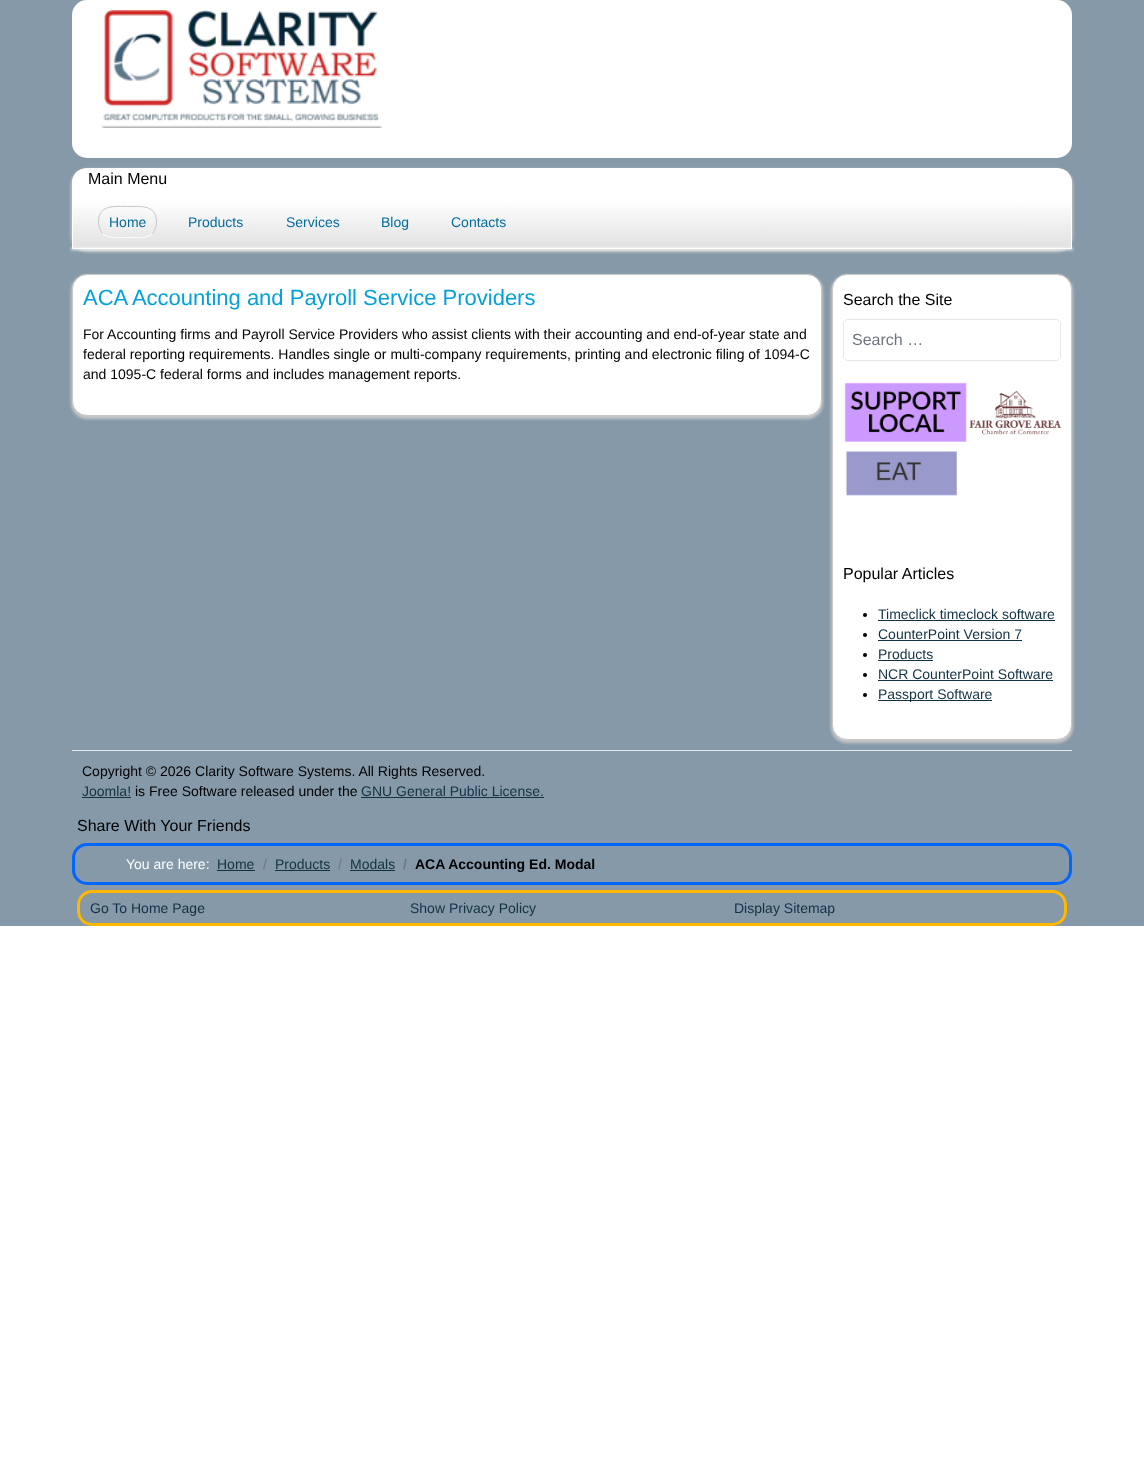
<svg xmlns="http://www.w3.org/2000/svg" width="1144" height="1475">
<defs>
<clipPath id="clip1"><path d="M87 168h970c8.5 0 15 6.5 15 15v66h-1000v-66c0-8.5 6.5-15 15-15z"/></clipPath>
<linearGradient id="g1" gradientUnits="userSpaceOnUse" x1="572" y1="169" x2="572" y2="248"><stop offset="0" stop-color="#fff"/><stop offset="0.4" stop-color="#fff"/><stop offset="1" stop-color="#e1e1e1"/></linearGradient>
</defs>
<rect width="100%" height="100%" fill="#fff"/>
<rect width="1144" height="926" fill="#8599a8"/>
<rect x="72" width="1000" height="158" rx="15" fill="#fff"/>
<image x="102" y="10" width="280" height="118" href="media/1.png"/>
<rect x="71" y="169" width="1002" height="83" rx="16" fill="#c7c7c7" filter="blur(1.5px)"/>
<g clip-path="url(#clip1)">
<rect x="72" y="169" width="1000" height="79" fill="url(#g1)"/>
</g>
<path d="M87 168.5h970c8 0 14.5 6.5 14.5 14.5v65.5h-999v-65.5c0-8 6.5-14.5 14.5-14.5z" fill="none" stroke="#fff"/>
<text x="88" y="184" style="font-family:Liberation Sans;font-size:16px;fill:#000">Main Menu</text>
<path d="M152.5 233.5c-6.5 6-17 4-25 4c-8 0-18.5 2-25-4" fill="none" stroke="#fff"/>
<path d="M102.5 233.5c-3-3.5-4-8-4-12.5c.5-17 17.5-14.5 29-14.5c11.5 0 28.5-2.5 29 14.5c0 4.5-1 9-4 12.5" fill="none" stroke="#c7c7c7"/>
<text x="109" y="227" style="font-family:Liberation Sans;font-size:14px;fill:#036c9e">Home</text>
<text x="188" y="227" style="font-family:Liberation Sans;font-size:14px;fill:#036c9e">Products</text>
<text x="286" y="227" style="font-family:Liberation Sans;font-size:14px;fill:#036c9e">Services</text>
<text x="381" y="227" style="font-family:Liberation Sans;font-size:14px;fill:#036c9e">Blog</text>
<text x="451" y="227" style="font-family:Liberation Sans;font-size:14px;fill:#036c9e">Contacts</text>
<rect x="71" y="248" width="1002" height="2" fill="#fff" filter="blur(1.5px)"/>
<rect x="71" y="275" width="752" height="144" rx="16" fill="#c7c7c7" filter="blur(1.5px)"/>
<rect x="72.5" y="274.5" width="749" height="141" rx="14.5" fill="#fff" stroke="#c7c7c7"/>
<text x="83" y="305" style="font-family:Liberation Sans;font-size:22px;fill:#03a1d9">ACA Accounting and Payroll Service Providers</text>
<text x="83" y="339" style="font-family:Liberation Sans;font-size:14px;fill:#000">For Accounting firms and Payroll Service Providers who assist clients with their accounting and end-of-year state and</text>
<text x="83" y="359" style="font-family:Liberation Sans;font-size:14px;fill:#000">federal reporting requirements. Handles single or multi-company requirements, printing and electronic filing of 1094-C</text>
<text x="83" y="379" style="font-family:Liberation Sans;font-size:14px;fill:#000">and 1095-C federal forms and includes management reports.</text>
<rect x="831" y="275" width="242" height="468" rx="16" fill="#c7c7c7" filter="blur(1.5px)"/>
<rect x="832.5" y="274.5" width="239" height="465" rx="14.5" fill="#fff" stroke="#c7c7c7"/>
<text x="843" y="305" style="font-family:Liberation Sans;font-size:16px;fill:#000">Search the Site</text>
<rect x="843.5" y="319.5" width="217" height="41" rx="4.5" fill="none" stroke="#e7e7e7"/>
<text x="852" y="345" style="font-family:Liberation Sans;font-size:16px;fill:#6d757e">Search …</text>
<image x="844" y="382" width="217" height="114" href="media/2.png"/>
<text x="843" y="579" style="font-family:Liberation Sans;font-size:16px;fill:#000">Popular Articles</text>
<circle cx="865" cy="615" r="2" fill="#000"/>
<text x="878" y="619" style="font-family:Liberation Sans;font-size:14px;fill:#123242">Timeclick timeclock software</text>
<rect x="878" y="620" width="177" height="1" fill="#123242"/>
<circle cx="865" cy="635" r="2" fill="#000"/>
<text x="878" y="639" style="font-family:Liberation Sans;font-size:14px;fill:#123242">CounterPoint Version 7</text>
<rect x="878" y="640" width="144" height="1" fill="#123242"/>
<circle cx="865" cy="655" r="2" fill="#000"/>
<text x="878" y="659" style="font-family:Liberation Sans;font-size:14px;fill:#123242">Products</text>
<rect x="878" y="660" width="55" height="1" fill="#123242"/>
<circle cx="865" cy="675" r="2" fill="#000"/>
<text x="878" y="679" style="font-family:Liberation Sans;font-size:14px;fill:#123242">NCR CounterPoint Software</text>
<rect x="878" y="680" width="175" height="1" fill="#123242"/>
<circle cx="865" cy="695" r="2" fill="#000"/>
<rect x="878" y="700" width="114" height="1" fill="#123242"/>
<text x="878" y="699" style="font-family:Liberation Sans;font-size:14px;fill:#123242">Passport Software</text>
<rect x="72" y="750" width="1000" height="1" fill="#e7e7e7"/>
<text x="82" y="776" style="font-family:Liberation Sans;font-size:14px;fill:#000">Copyright © 2026 Clarity Software Systems. All Rights Reserved.</text>
<text x="82" y="796" style="font-family:Liberation Sans;font-size:14px;fill:#123242">Joomla!</text>
<rect x="82" y="797" width="49" height="1" fill="#123242"/>
<text x="135" y="796" style="font-family:Liberation Sans;font-size:14px;fill:#000">is Free Software released under the</text>
<text x="361" y="796" style="font-family:Liberation Sans;font-size:14px;fill:#123242">GNU General Public License.</text>
<rect x="361" y="797" width="183" height="1" fill="#123242"/>
<text x="77" y="831" style="font-family:Liberation Sans;font-size:16px;fill:#000">Share With Your Friends</text>
<rect x="73.5" y="844.5" width="997" height="39" rx="13.5" fill="none" stroke="#06f" stroke-width="3"/>
<text x="126" y="869" style="font-family:Liberation Sans;font-size:14px;fill:#fff">You are here:</text>
<text x="217" y="869" style="font-family:Liberation Sans;font-size:14px;fill:#123242">Home</text>
<rect x="217" y="870" width="38" height="1" fill="#123242"/>
<text x="263" y="869" style="font-family:Liberation Sans;font-size:14px;fill:#6d757e">/</text>
<text x="275" y="869" style="font-family:Liberation Sans;font-size:14px;fill:#123242">Products</text>
<rect x="275" y="870" width="55" height="1" fill="#123242"/>
<text x="338" y="869" style="font-family:Liberation Sans;font-size:14px;fill:#6d757e">/</text>
<text x="350" y="869" style="font-family:Liberation Sans;font-size:14px;fill:#123242">Modals</text>
<rect x="350" y="870" width="45" height="1" fill="#123242"/>
<text x="403" y="869" style="font-family:Liberation Sans;font-size:14px;font-weight:bold;fill:#6d757e">/</text>
<text x="415" y="869" style="font-family:Liberation Sans;font-size:14px;font-weight:bold;fill:#000">ACA Accounting Ed. Modal</text>
<rect x="78.5" y="891.5" width="987" height="33" rx="13.5" fill="none" stroke="#ffb700" stroke-width="3"/>
<text x="90" y="913" style="font-family:Liberation Sans;font-size:14px;fill:#123242">Go To Home Page</text>
<text x="410" y="913" style="font-family:Liberation Sans;font-size:14px;fill:#123242">Show Privacy Policy</text>
<text x="734" y="913" style="font-family:Liberation Sans;font-size:14px;fill:#123242">Display Sitemap</text>
</svg>
